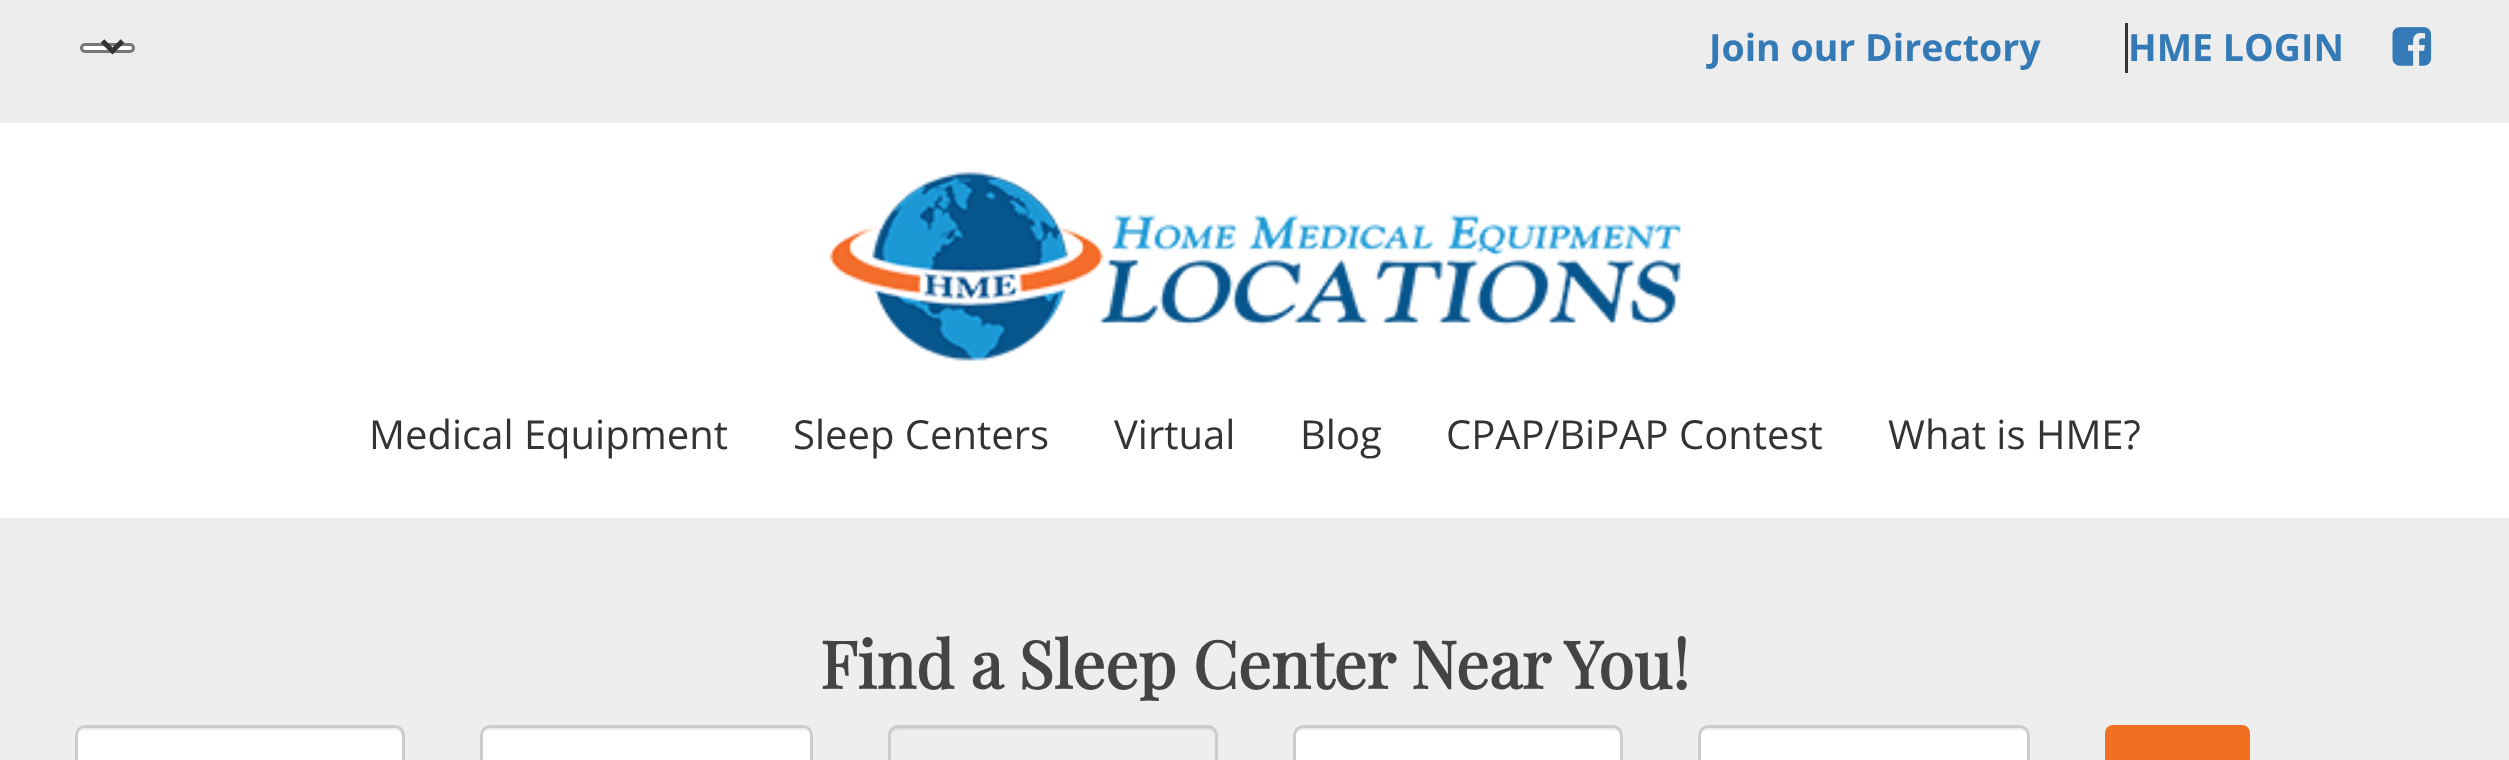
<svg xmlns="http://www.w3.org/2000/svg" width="2509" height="760">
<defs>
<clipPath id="clip1"><path d="M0 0h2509v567h-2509zm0 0h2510v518h-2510z" clip-rule="evenodd"/></clipPath>
</defs>
<rect width="100%" height="100%" fill="#fff"/>
<g clip-path="url(#clip1)">
<rect y="10" width="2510" height="518" fill="#7d7d7d" filter="blur(12.5px)"/>
</g>
<rect width="2509" height="123" fill="#ededed"/>
<rect x="81.5" y="44.5" width="52" height="7" rx="3.5" fill="#fff" stroke="#767676" stroke-width="3"/>
<path d="M102.5 41l10 10l10-10" fill="none" stroke="#333" stroke-width="5"/>
<text x="1709" y="61" style="font-family:Open Sans;font-size:37.5px;font-weight:bold;fill:#337ab7">Join our Directory</text>
<text x="2128" y="61" style="font-family:Open Sans;font-size:37.5px;font-weight:bold;fill:#337ab7">HME LOGIN</text>
<rect x="2125" y="23" width="3" height="50" fill="#333"/>
<image x="2392" y="27" width="40" height="39" href="media/1.png"/>
<image x="829" y="171" width="852" height="190" href="media/2.png"/>
<text x="369" y="449" style="font-family:Open Sans;font-size:40px;fill:#333">Medical Equipment</text>
<text x="793" y="449" style="font-family:Open Sans;font-size:40px;fill:#333">Sleep Centers</text>
<text x="1114" y="449" style="font-family:Open Sans;font-size:40px;fill:#333">Virtual</text>
<text x="1300" y="449" style="font-family:Open Sans;font-size:40px;fill:#333">Blog</text>
<text x="1446" y="449" style="font-family:Open Sans;font-size:40px;fill:#333">CPAP/BiPAP Contest</text>
<text x="1888" y="449" style="font-family:Open Sans;font-size:40px;fill:#333">What is HME?</text>
<rect y="518" width="2509" height="242" fill="#eee"/>
<text x="820" y="689" style="font-family:Playfair Display;font-size:65.6px;font-weight:bold;fill:#444">Find a Sleep Center Near You!</text>
<rect x="75" y="725" width="330" height="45" rx="10" fill="#fff"/>
<path d="M85 730h310c4 0 7 3 7 8v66c1-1 1-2 1-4v-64c0-4-4-8-8-8h-309c-4 0-8 4-8 8v2c0-5 3-8 7-8z" fill="#ececec"/>
<rect x="76.5" y="726.5" width="327" height="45" rx="8.5" fill="none" stroke="#ccc" stroke-width="3"/>
<rect x="480" y="725" width="333" height="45" rx="10" fill="#fff"/>
<path d="M490 730h312c5 0 8 3 8 8v-2c0-4-4-8-8-8h-311c-3 0-6 2-8 5c2-2 5-3 7-3z" fill="#ececec"/>
<rect x="481.5" y="726.5" width="330" height="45" rx="8.5" fill="none" stroke="#ccc" stroke-width="3"/>
<path d="M898 730h310c4 0 7 3 7 8c0-4-1-9-6-10h-313c-5 1-6 6-6 10c0-5 3-8 8-8z" fill="#dcdcdc"/>
<rect x="889.5" y="726.5" width="327" height="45" rx="8.5" fill="none" stroke="#ccc" stroke-width="3"/>
<rect x="1293" y="725" width="330" height="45" rx="10" fill="#fff"/>
<path d="M1302 730h310c5 0 8 3 8 8c0-4-1-9-6-10h-313c-5 1-6 6-6 10c0-5 3-8 7-8z" fill="#ececec"/>
<rect x="1294.5" y="726.5" width="327" height="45" rx="8.5" fill="none" stroke="#ccc" stroke-width="3"/>
<rect x="1698" y="725" width="332" height="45" rx="10" fill="#fff"/>
<path d="M1708 730h312c4 0 8 3 8 8c0-4-1-9-6-10h-316c-5 1-6 6-6 10c0-5 3-8 8-8z" fill="#ececec"/>
<rect x="1699.5" y="726.5" width="329" height="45" rx="8.5" fill="none" stroke="#ccc" stroke-width="3"/>
<rect x="2105" y="725" width="145" height="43" rx="8" fill="#ee7020"/>
</svg>
